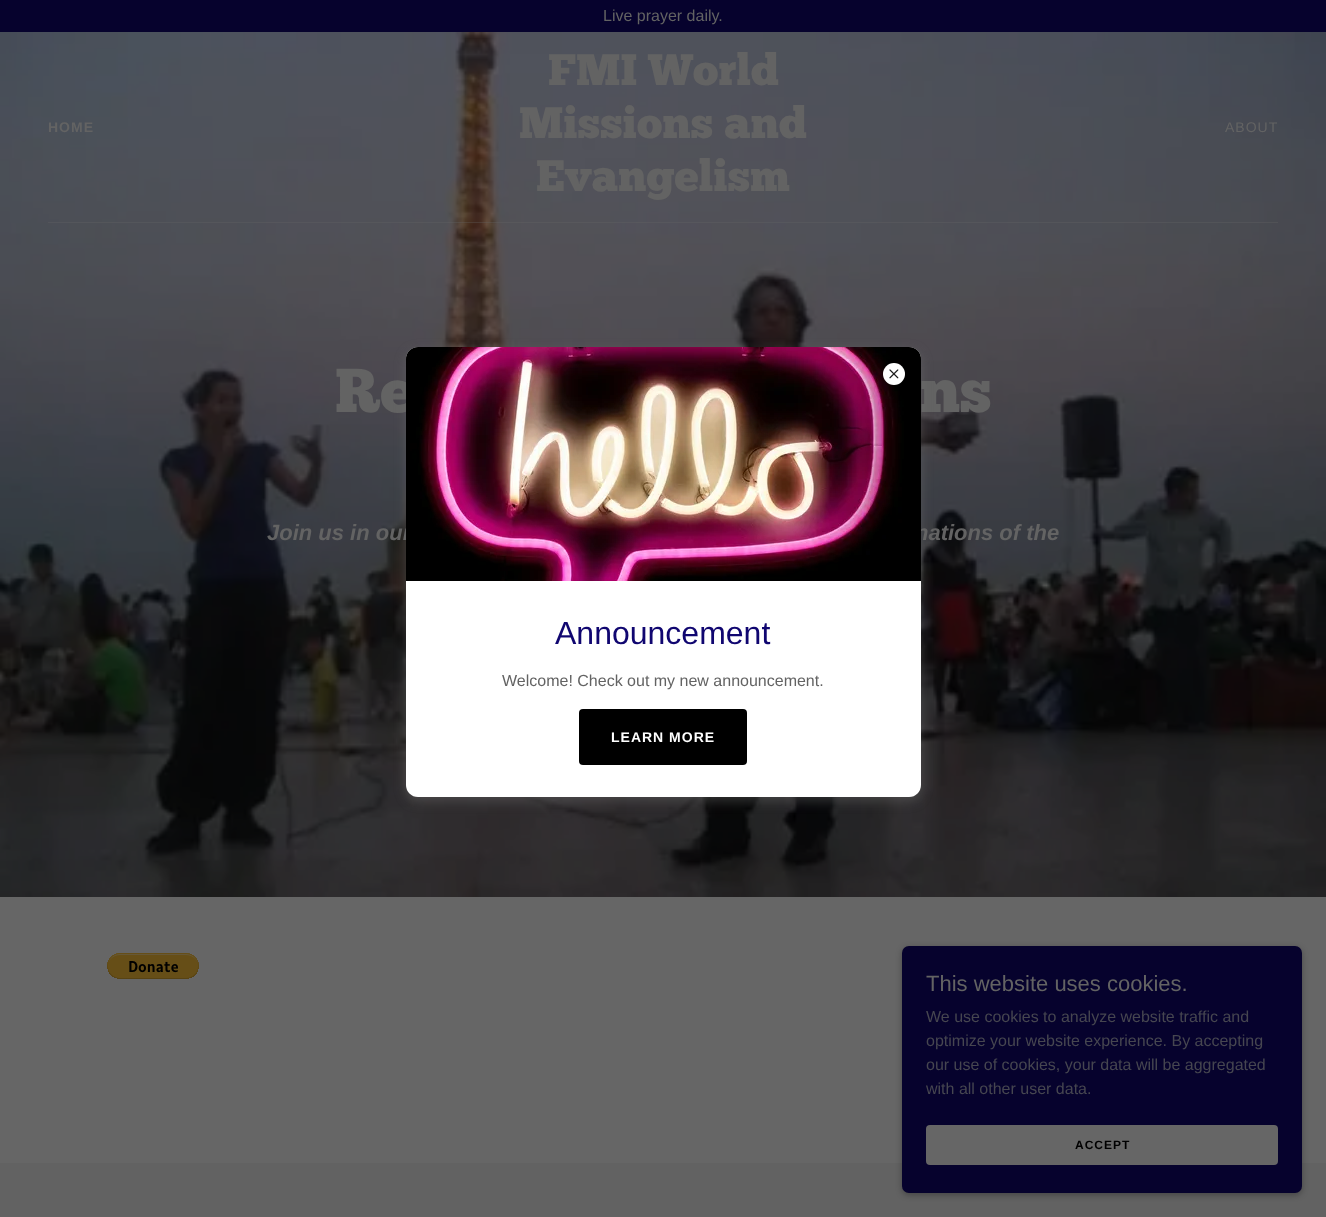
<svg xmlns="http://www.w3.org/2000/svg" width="1326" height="1217">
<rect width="100%" height="100%" fill="#666"/>
<rect width="1326" height="32" fill="#06022d"/>
<text x="603" y="21" style="font-family:Liberation Sans;font-size:16px;fill:#636363">Live prayer daily.</text>
<image x="0" y="32" width="1326" height="865" href="media/1.png"/>
<text x="48" y="132" style="font-family:Liberation Sans;font-size:14px;font-weight:bold;letter-spacing:1px;fill:#636363">HOME</text>
<text x="548" y="85" style="font-family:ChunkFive;font-size:44px;fill:#636363">FMI World</text>
<text x="519" y="138" style="font-family:ChunkFive;font-size:44px;fill:#636363">Missions and</text>
<text x="536" y="191" style="font-family:ChunkFive;font-size:44px;fill:#636363">Evangelism</text>
<text x="1225" y="132" style="font-family:Liberation Sans;font-size:14px;letter-spacing:1px;fill:#636363">ABOUT</text>
<rect x="48" y="222" width="1230" height="1" fill="#6666664d"/>
<text x="335" y="412" style="font-family:ChunkFive;font-size:62px;fill:#636363">Re</text>
<text x="920" y="412" style="font-family:ChunkFive;font-size:62px;fill:#636363">ns</text>
<text x="267" y="540" style="font-family:Liberation Sans;font-size:22px;font-weight:bold;font-style:italic;fill:#636363">Join us in our</text>
<text x="915" y="540" style="font-family:Liberation Sans;font-size:22px;font-weight:bold;font-style:italic;fill:#636363">nations of the</text>
<rect x="406" y="351" width="515" height="450" rx="12" fill="#75757566" filter="blur(6px)"/>
<rect x="406" y="347" width="515" height="450" rx="12" fill="#fff"/>
<image x="406" y="347" width="515" height="234" href="media/3.png"/>
<circle cx="894" cy="374" r="11" fill="#fff"/>
<image x="889" y="369" width="10" height="10" href="media/2.png"/>
<text x="555" y="644" style="font-family:Liberation Sans;font-size:32px;fill:#100670">Announcement</text>
<text x="502" y="686" style="font-family:Liberation Sans;font-size:16px;fill:#636363">Welcome! Check out my new announcement.</text>
<rect x="579" y="709" width="168" height="56" rx="4" fill="#000"/>
<text x="611" y="742" style="font-family:Liberation Sans;font-size:14px;font-weight:bold;letter-spacing:1px;fill:#fff">LEARN MORE</text>
<image x="107" y="953" width="92" height="26" href="media/4.png"/>
<rect y="1163" width="1326" height="54" fill="#626262"/>
<rect x="902" y="948" width="400" height="247" rx="7" fill="#0000004d" filter="blur(3px)"/>
<rect x="902" y="946" width="400" height="247" rx="7" fill="#06022d"/>
<text x="926" y="991" style="font-family:Liberation Sans;font-size:22px;fill:#636363">This website uses cookies.</text>
<text x="926" y="1022" style="font-family:Liberation Sans;font-size:16px;fill:#464650">We use cookies to analyze website traffic and</text>
<text x="926" y="1046" style="font-family:Liberation Sans;font-size:16px;fill:#464650">optimize your website experience. By accepting</text>
<text x="926" y="1070" style="font-family:Liberation Sans;font-size:16px;fill:#464650">our use of cookies, your data will be aggregated</text>
<text x="926" y="1094" style="font-family:Liberation Sans;font-size:16px;fill:#464650">with all other user data.</text>
<rect x="926" y="1125" width="352" height="40" rx="4" fill="#666"/>
<text x="1075" y="1149" style="font-family:Liberation Sans;font-size:12px;font-weight:bold;letter-spacing:1px;fill:#000">ACCEPT</text>
</svg>
